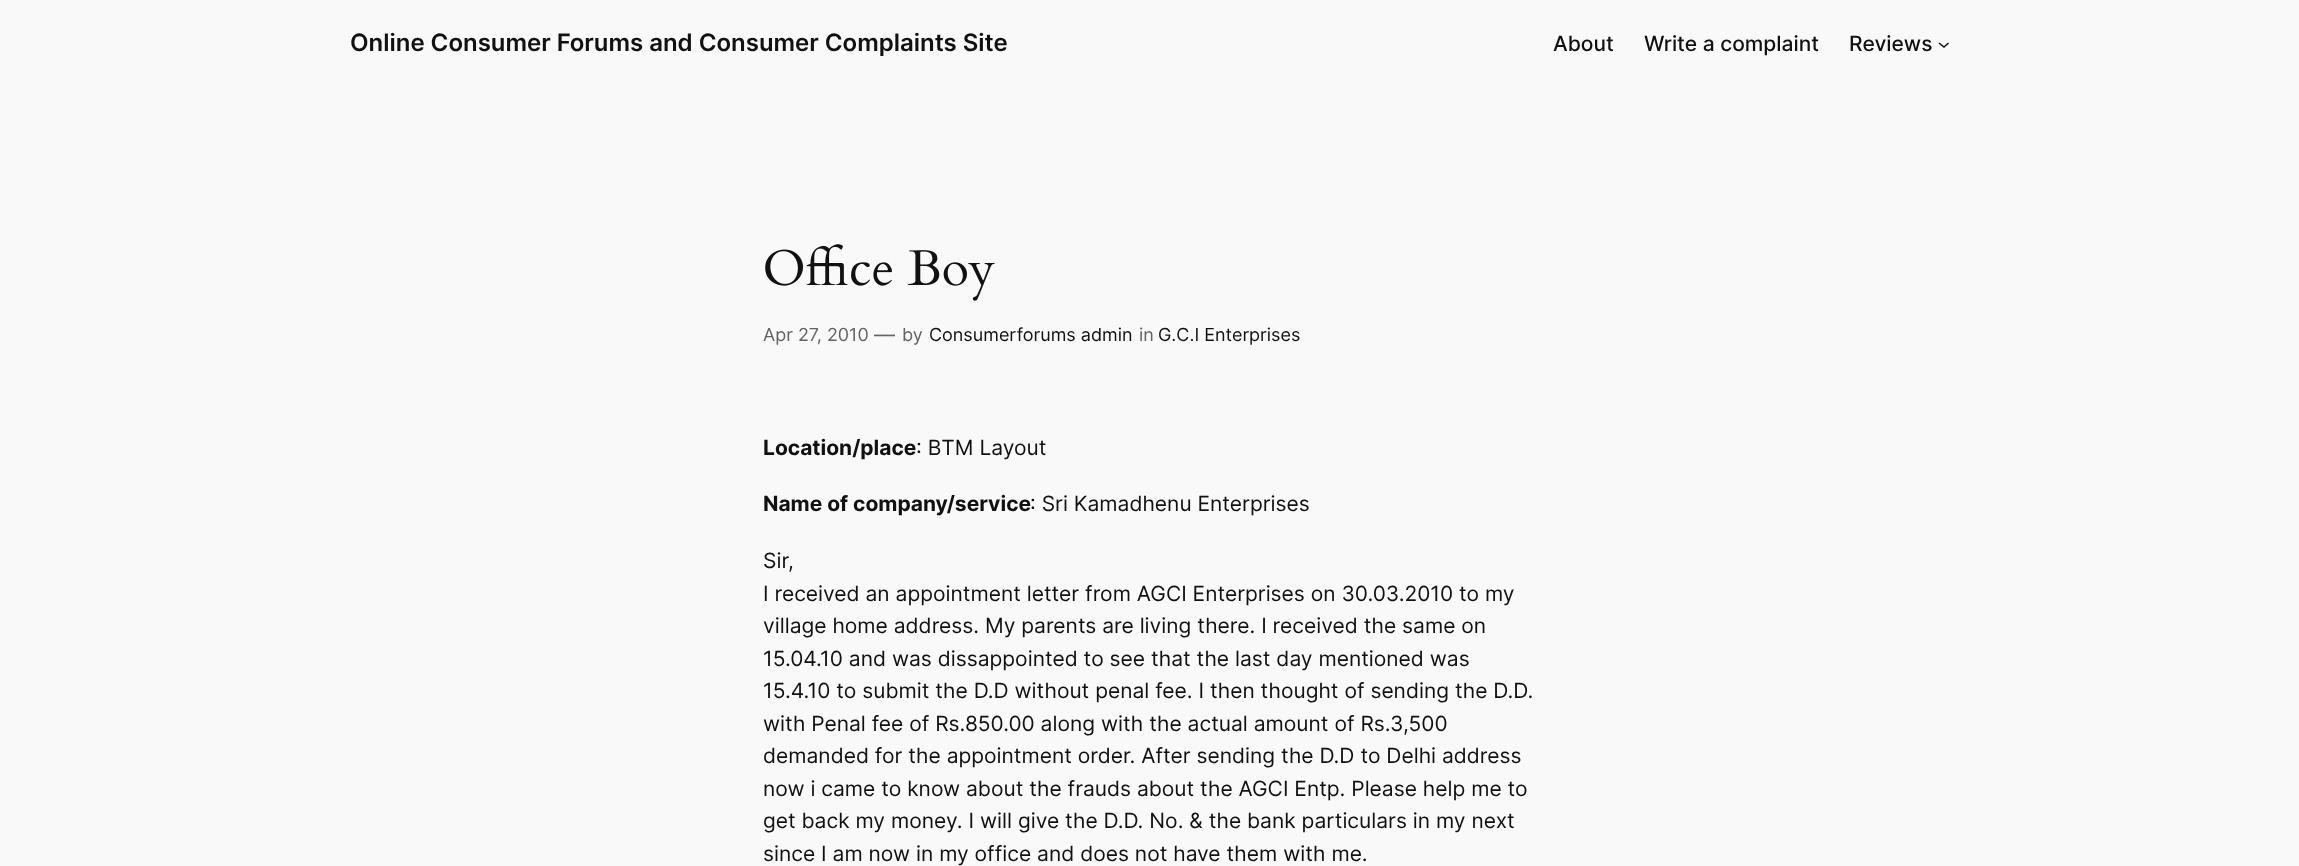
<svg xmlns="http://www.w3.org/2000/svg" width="2299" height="866">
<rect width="100%" height="100%" fill="#f9f9f9"/>
<text x="350" y="51" style="font-family:Inter;font-size:24px;font-weight:600;fill:#111">Online Consumer Forums and Consumer Complaints Site</text>
<text x="1553" y="51" style="font-family:Inter;font-size:21px;font-weight:500;fill:#111">About</text>
<text x="1644" y="51" style="font-family:Inter;font-size:21px;font-weight:500;fill:#111">Write a complaint</text>
<text x="1849" y="51" style="font-family:Inter;font-size:21px;font-weight:500;fill:#111">Reviews</text>
<path d="M1939 43l5 4l4.5-4" fill="none" stroke="#111" stroke-width="1.6"/>
<image x="765" y="244" width="230" height="57" href="media/1.png"/>
<text x="763" y="341" style="font-family:Inter;font-size:18px;fill:#636363">Apr 27, 2010</text>
<text x="874" y="342" style="font-family:Inter;font-size:21px;fill:#636363">—</text>
<text x="902" y="341" style="font-family:Inter;font-size:18px;fill:#636363">by</text>
<text x="929" y="341" style="font-family:Inter;font-size:18px;fill:#111">Consumerforums admin</text>
<text x="1139" y="341" style="font-family:Inter;font-size:18px;fill:#636363">in</text>
<text x="1158" y="341" style="font-family:Inter;font-size:18px;fill:#111">G.C.I Enterprises</text>
<text x="763" y="455" style="font-family:Inter;font-size:21px;font-weight:bold;fill:#111">Location/place</text>
<text x="916" y="455" style="font-family:Inter;font-size:21px;fill:#111">: BTM Layout</text>
<text x="763" y="511" style="font-family:Inter;font-size:21px;font-weight:bold;fill:#111">Name of company/service</text>
<text x="1030" y="511" style="font-family:Inter;font-size:21px;fill:#111">: Sri Kamadhenu Enterprises</text>
<text x="763" y="568" style="font-family:Inter;font-size:21px;fill:#111">Sir,</text>
<text x="763" y="601" style="font-family:Inter;font-size:21px;fill:#111">I received an appointment letter from AGCI Enterprises on 30.03.2010 to my</text>
<text x="763" y="633" style="font-family:Inter;font-size:21px;fill:#111">village home address. My parents are living there. I received the same on</text>
<text x="763" y="666" style="font-family:Inter;font-size:21px;fill:#111">15.04.10 and was dissappointed to see that the last day mentioned was</text>
<text x="763" y="698" style="font-family:Inter;font-size:21px;fill:#111">15.4.10 to submit the D.D without penal fee. I then thought of sending the D.D.</text>
<text x="763" y="731" style="font-family:Inter;font-size:21px;fill:#111">with Penal fee of Rs.850.00 along with the actual amount of Rs.3,500</text>
<text x="763" y="763" style="font-family:Inter;font-size:21px;fill:#111">demanded for the appointment order. After sending the D.D to Delhi address</text>
<text x="763" y="796" style="font-family:Inter;font-size:21px;fill:#111">now i came to know about the frauds about the AGCI Entp. Please help me to</text>
<text x="763" y="828" style="font-family:Inter;font-size:21px;fill:#111">get back my money. I will give the D.D. No. &amp; the bank particulars in my next</text>
<text x="763" y="861" style="font-family:Inter;font-size:21px;fill:#111">since I am now in my office and does not have them with me.</text>
</svg>
